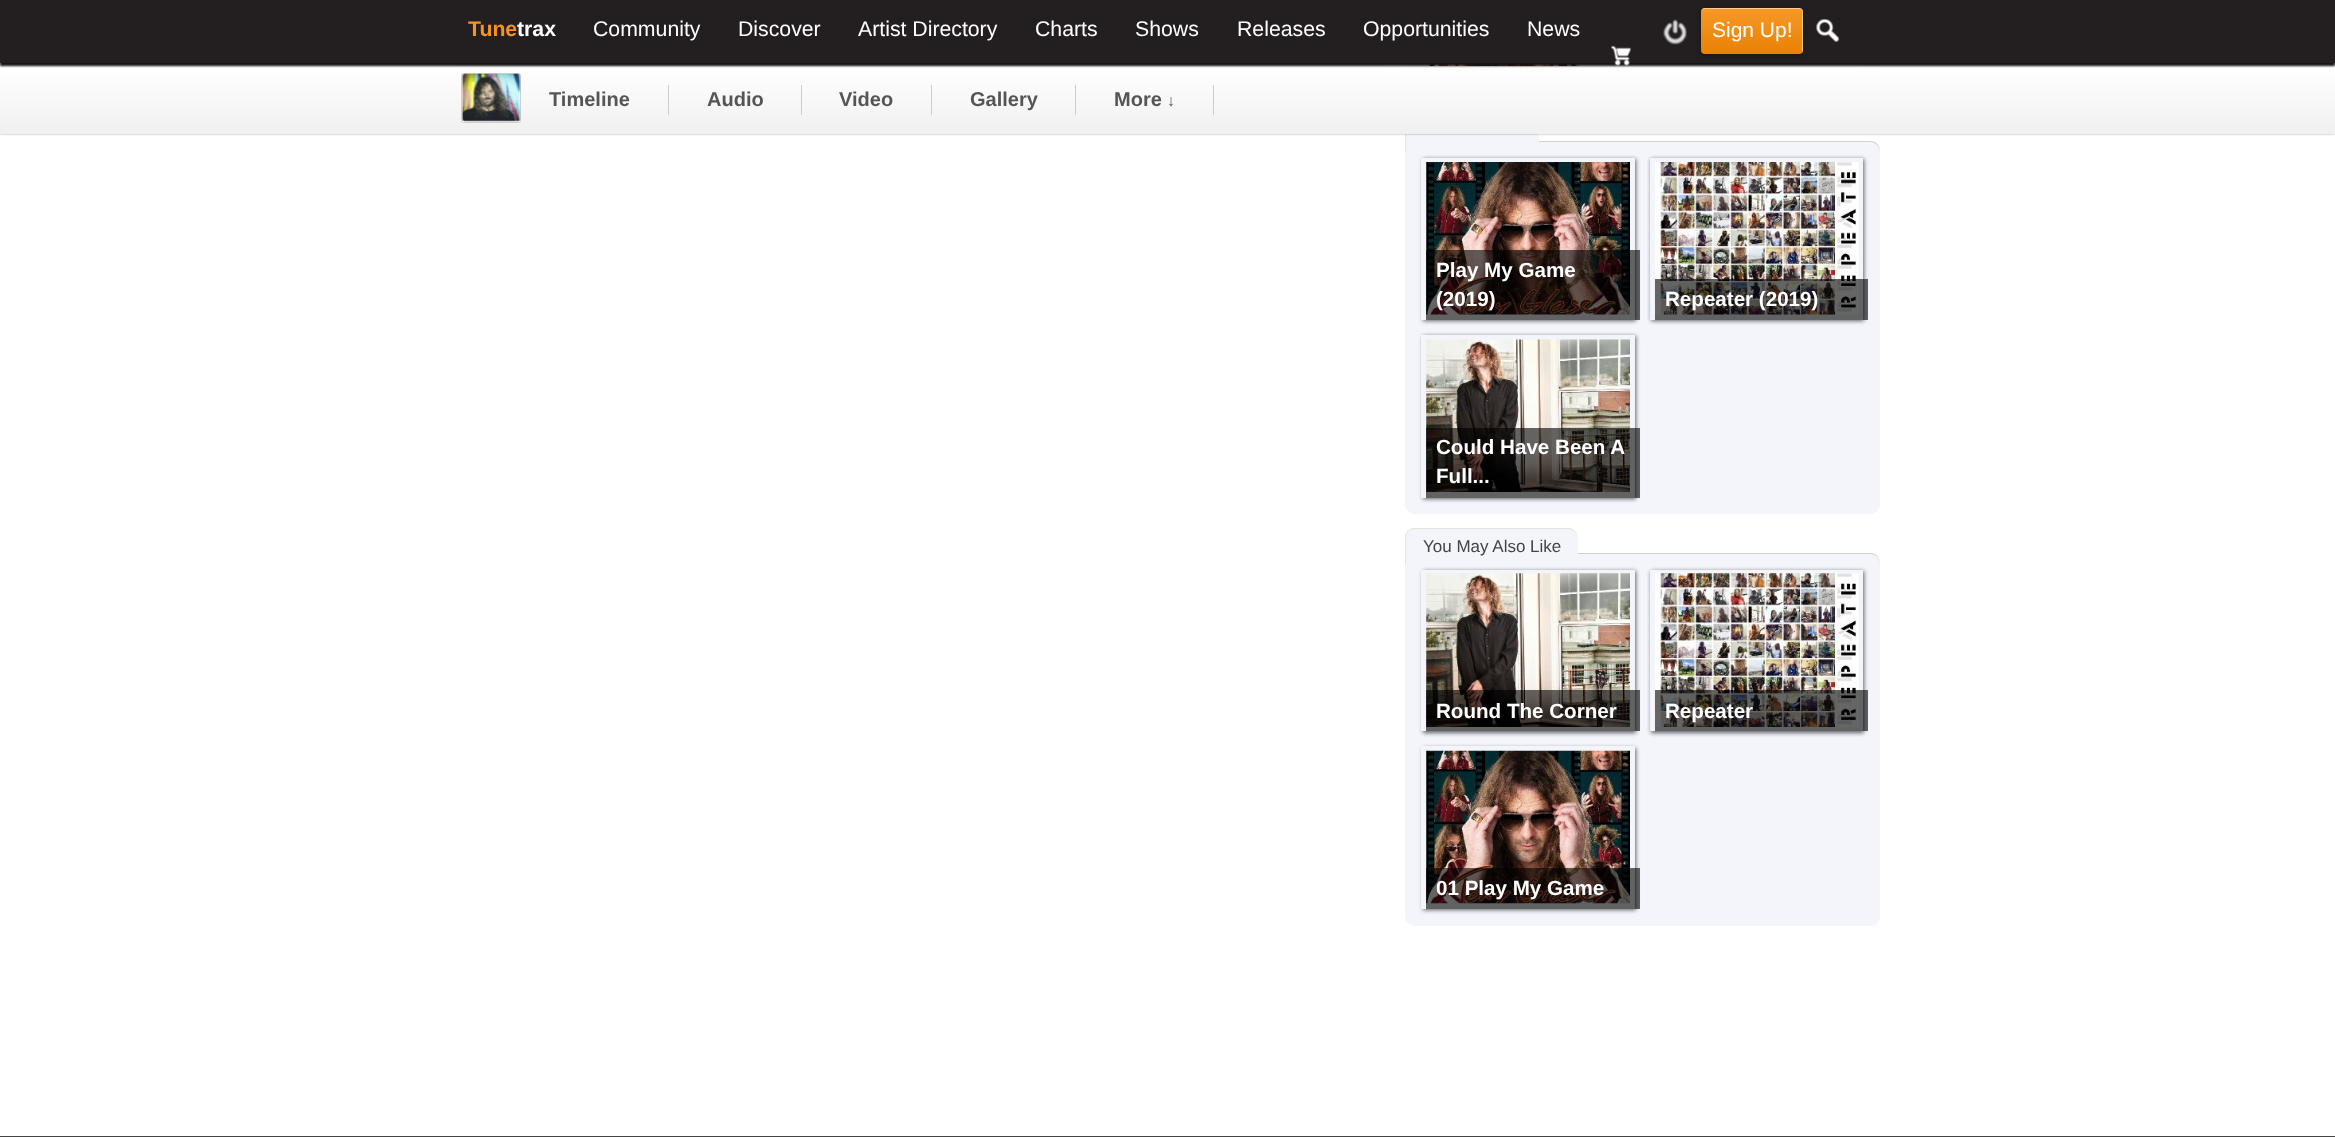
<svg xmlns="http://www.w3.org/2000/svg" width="2335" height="1137">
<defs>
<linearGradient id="g1" gradientUnits="userSpaceOnUse" x1="1168" y1="66" x2="1168" y2="134"><stop offset="0" stop-color="#fff"/><stop offset="1" stop-color="#f0f0f0"/></linearGradient>
<linearGradient id="g2" gradientUnits="userSpaceOnUse" x1="1752" y1="7.5" x2="1752" y2="54"><stop offset="0" stop-color="#f79928"/><stop offset="1" stop-color="#e88105"/></linearGradient>
<clipPath id="clip1"><path d="M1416 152h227v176h-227zm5 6h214v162h-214z" clip-rule="evenodd"/></clipPath>
<clipPath id="clip2"><path d="M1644 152h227v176h-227zm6 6h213v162h-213z" clip-rule="evenodd"/></clipPath>
<clipPath id="clip3"><path d="M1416 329h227v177h-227zm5 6h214v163h-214z" clip-rule="evenodd"/></clipPath>
<clipPath id="clip4"><path d="M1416 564h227v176h-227zm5 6h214v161h-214z" clip-rule="evenodd"/></clipPath>
<clipPath id="clip5"><path d="M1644 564h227v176h-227zm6 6h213v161h-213z" clip-rule="evenodd"/></clipPath>
<clipPath id="clip6"><path d="M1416 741h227v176h-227zm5 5h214v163h-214z" clip-rule="evenodd"/></clipPath>
</defs>
<rect width="100%" height="100%" fill="#fff"/>
<path d="M455-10h931v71c0 5.5-4.5 10-10 10h-911c-5.5 0-10-4.5-10-10z" fill="#f3f5fa"/>
<rect x="1405" y="64" width="475" height="2" fill="#f3f5fa"/>
<rect x="1424" y="-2" width="437" height="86" fill="#00000040" filter="blur(0.5px)"/>
<rect x="1424" y="64" width="437" height="2" fill="#fff"/>
<rect x="1431" y="-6" width="145" height="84" fill="#111" filter="blur(2px)"/>
<image x="1430" y="64" width="145" height="2" href="media/5.png"/>
<path d="M1405 141h465c5.5 0 10 4.5 10 10v353c0 5.5-4.5 10-10 10h-455c-5.5 0-10-4.5-10-10z" fill="#f3f5fa"/>
<path d="M1405 142h465c6 0 10 5 10 10v-1c0-6-4-10-10-10h-465z" fill="#00000026"/>
<rect x="1405" y="134" width="134" height="8" fill="#f3f5fa"/>
<path d="M1405 125v27h1v-27c0-2.5 1-5 2.5-6.5l-.5-.5c-2 1.5-3 4-3 7z" fill="#e5e5e5"/>
<rect y="66" width="2335" height="68" fill="#00000059" filter="blur(1px)"/>
<rect y="66" width="2335" height="68" fill="url(#g1)"/>
<rect y="4" width="2335" height="62" fill="#171415" filter="blur(1px)"/>
<rect width="2335" height="63" fill="#231f20"/>
<text x="468" y="36" style="font-family:Liberation Sans;font-size:21.25px;font-weight:bold;fill:#f7941d">Tune</text>
<text x="517" y="36" style="font-family:Liberation Sans;font-size:21.25px;font-weight:bold;fill:#fff">trax</text>
<text x="593" y="36" style="font-family:Liberation Sans;font-size:21.25px;fill:#fff">Community</text>
<text x="738" y="36" style="font-family:Liberation Sans;font-size:21.25px;fill:#fff">Discover</text>
<text x="858" y="36" style="font-family:Liberation Sans;font-size:21.25px;fill:#fff">Artist Directory</text>
<text x="1035" y="36" style="font-family:Liberation Sans;font-size:21.25px;fill:#fff">Charts</text>
<text x="1135" y="36" style="font-family:Liberation Sans;font-size:21.25px;fill:#fff">Shows</text>
<text x="1237" y="36" style="font-family:Liberation Sans;font-size:21.25px;fill:#fff">Releases</text>
<text x="1363" y="36" style="font-family:Liberation Sans;font-size:21.25px;fill:#fff">Opportunities</text>
<text x="1527" y="36" style="font-family:Liberation Sans;font-size:21.25px;fill:#fff">News</text>
<image x="1663" y="19" width="24" height="26" href="media/1.png"/>
<rect x="1701" y="9" width="102" height="46" rx="4" fill="#00000059" filter="blur(2px)"/>
<rect x="1701" y="8" width="102" height="46" rx="4" fill="url(#g2)"/>
<path d="M1705 9h94c5 0 3 7 3 9v35c0-1 1-2 1-3v-38c0-2-2-4-4-4h-94c-2 0-4 2-4 4c0-2 2-3 4-3z" fill="#ffffff82"/>
<text x="1712" y="37" style="font-family:Liberation Sans;font-size:21px;fill:#fff">Sign Up!</text>
<image x="1816" y="19" width="24" height="23" href="media/2.png"/>
<image x="1611" y="45" width="20" height="21" href="media/3.png"/>
<rect x="461.5" y="73.5" width="59" height="49" rx="2" fill="#fff" stroke="#cfcfcf"/>
<image x="462" y="73" width="59" height="49" href="media/4.png"/>
<rect x="668" y="85" width="1" height="30" fill="#ccc"/>
<text x="549" y="106" style="font-family:Liberation Sans;font-size:20px;font-weight:bold;fill:#555">Timeline</text>
<rect x="801" y="85" width="1" height="30" fill="#ccc"/>
<text x="707" y="106" style="font-family:Liberation Sans;font-size:20px;font-weight:bold;fill:#555">Audio</text>
<rect x="931" y="85" width="1" height="30" fill="#ccc"/>
<text x="839" y="106" style="font-family:Liberation Sans;font-size:20px;font-weight:bold;fill:#555">Video</text>
<rect x="1075" y="85" width="1" height="30" fill="#ccc"/>
<text x="970" y="106" style="font-family:Liberation Sans;font-size:20px;font-weight:bold;fill:#555">Gallery</text>
<rect x="1213" y="85" width="1" height="30" fill="#ccc"/>
<text x="1114" y="106" style="font-family:Liberation Sans;font-size:20px;font-weight:bold;fill:#555">More</text>
<text x="1167" y="106" style="font-family:Liberation Sans;font-size:16px;font-weight:bold;fill:#555">↓</text>
<g clip-path="url(#clip1)">
<rect x="1423" y="159" width="213" height="162" fill="#00000099" filter="blur(2px)"/>
</g>
<image x="1426" y="162" width="204" height="153" href="media/6.png"/>
<rect x="1426" y="250" width="214" height="70" fill="#00000099"/>
<text x="1436" y="277" style="font-family:Liberation Sans;font-size:20.6px;font-weight:bold;fill:#fff">Play My Game</text>
<text x="1436" y="306" style="font-family:Liberation Sans;font-size:20.6px;font-weight:bold;fill:#fff">(2019)</text>
<g clip-path="url(#clip2)">
<rect x="1651" y="159" width="213" height="162" fill="#00000099" filter="blur(2px)"/>
</g>
<image x="1655" y="162" width="204" height="153" href="media/7.png"/>
<rect x="1655" y="279" width="213" height="41" fill="#00000099"/>
<text x="1665" y="306" style="font-family:Liberation Sans;font-size:20.6px;font-weight:bold;fill:#fff">Repeater (2019)</text>
<g clip-path="url(#clip3)">
<rect x="1423" y="336" width="213" height="163" fill="#00000099" filter="blur(2px)"/>
</g>
<image x="1426" y="339" width="204" height="153" href="media/8.png"/>
<rect x="1426" y="428" width="214" height="70" fill="#00000099"/>
<text x="1436" y="454" style="font-family:Liberation Sans;font-size:20.6px;font-weight:bold;fill:#fff">Could Have Been A</text>
<text x="1436" y="483" style="font-family:Liberation Sans;font-size:20.6px;font-weight:bold;fill:#fff">Full...</text>
<path d="M1405 553h465c5.5 0 10 4.5 10 10v353c0 5.5-4.5 10-10 10h-455c-5.5 0-10-4.5-10-10z" fill="#f3f5fa"/>
<path d="M1405 554h465c6 0 10 4 10 10v-1c0-6-4-10-10-10h-465z" fill="#00000026"/>
<path d="M1415 528h153c5.5 0 10 4.5 10 10v26h-173v-26c0-5.5 4.5-10 10-10z" fill="#f3f5fa"/>
<text x="1423" y="552" style="font-family:Liberation Sans;font-size:17px;fill:#444">You May Also Like</text>
<path d="M1415 528h153c4 0 8 3 10 7c-2-3-6-6-10-6h-153c-2 0-5 1-6 2h-1c2-2 4-3 7-3z" fill="#e1e1e1"/>
<path d="M1405 564h1v-26c0-2.5 1-5 3-6.5l-1-1c-2 2-3 4.5-3 7.5z" fill="#e5e5e5"/>
<g clip-path="url(#clip4)">
<rect x="1423" y="571" width="213" height="162" fill="#00000099" filter="blur(2px)"/>
</g>
<image x="1426" y="573" width="204" height="154" href="media/9.png"/>
<rect x="1426" y="690" width="214" height="41" fill="#00000099"/>
<text x="1436" y="718" style="font-family:Liberation Sans;font-size:20.6px;font-weight:bold;fill:#fff">Round The Corner</text>
<g clip-path="url(#clip5)">
<rect x="1651" y="571" width="213" height="162" fill="#00000099" filter="blur(2px)"/>
</g>
<image x="1655" y="573" width="204" height="154" href="media/10.png"/>
<rect x="1655" y="690" width="213" height="41" fill="#00000099"/>
<text x="1665" y="718" style="font-family:Liberation Sans;font-size:20.6px;font-weight:bold;fill:#fff">Repeater</text>
<g clip-path="url(#clip6)">
<rect x="1423" y="748" width="213" height="162" fill="#00000099" filter="blur(2px)"/>
</g>
<image x="1426" y="750" width="204" height="154" href="media/11.png"/>
<rect x="1426" y="868" width="214" height="41" fill="#00000099"/>
<text x="1436" y="895" style="font-family:Liberation Sans;font-size:20.6px;font-weight:bold;fill:#fff">01 Play My Game</text>
<rect y="1136" width="2335" height="1" fill="#444"/>
</svg>
